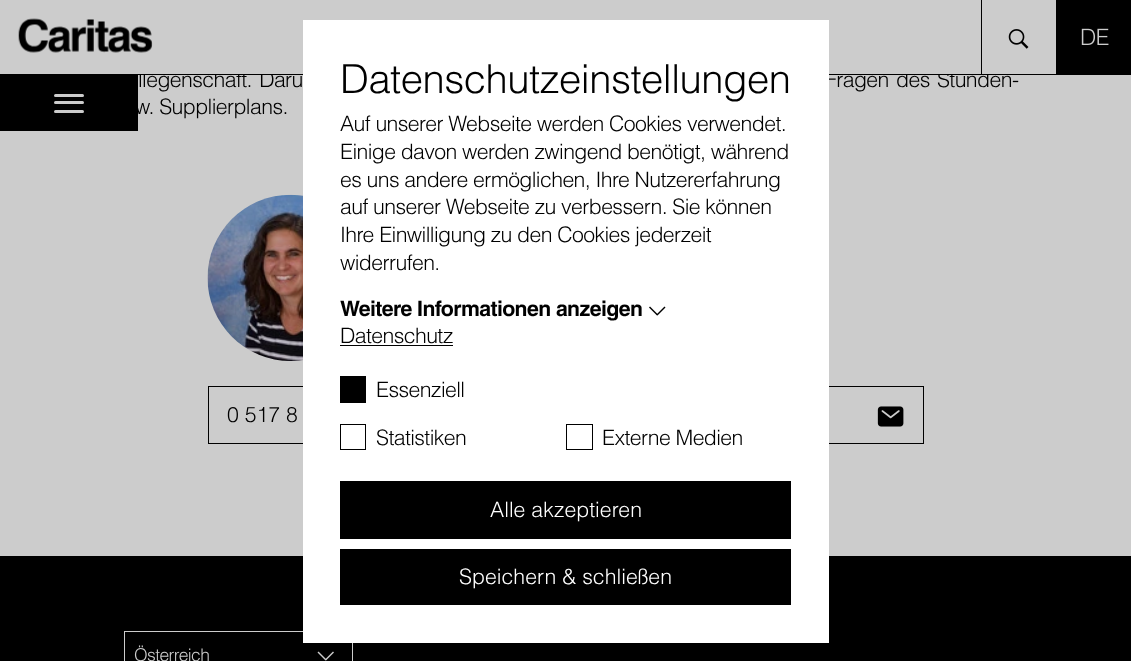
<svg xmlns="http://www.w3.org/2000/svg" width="1131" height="661">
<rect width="100%" height="100%" fill="#ccc"/>
<text x="138" y="87" word-spacing="2" style="font-family:'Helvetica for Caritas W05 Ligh';font-size:21.25px;font-weight:300;letter-spacing:-0.6px;fill:#000">llegenschaft. Darü</text>
<text x="825" y="87" word-spacing="2" style="font-family:'Helvetica for Caritas W05 Ligh';font-size:21.25px;font-weight:300;letter-spacing:-0.6px;fill:#000">Fragen des Stunden-</text>
<rect x="139" y="71" width="850" height="3" fill="#ccc"/>
<rect y="74" width="1131" height="1" fill="#000"/>
<image x="18" y="18" width="135" height="35" href="media/1.png"/>
<rect x="981" width="1" height="74" fill="#000"/>
<image x="1008" y="29" width="21" height="20" href="media/2.png"/>
<rect x="1056" width="75" height="74" fill="#000"/>
<image x="1081" y="28" width="28" height="17" href="media/3.png"/>
<rect y="75" width="138" height="56" fill="#000"/>
<rect x="54" y="94" width="30" height="3" rx="1.5" fill="#ccc"/>
<rect x="54" y="101" width="30" height="3" rx="1.5" fill="#ccc"/>
<rect x="54" y="110" width="30" height="3" rx="1.5" fill="#ccc"/>
<rect x="208.5" y="386.5" width="356" height="57" fill="none" stroke="#000"/>
<rect y="556" width="1131" height="105" fill="#000"/>
<rect x="124.5" y="631.5" width="228" height="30" fill="none" stroke="#ccc"/>
<rect x="303" y="20" width="526" height="623" fill="#fff"/>
<text x="340" y="93" style="font-family:'Helvetica for Caritas W05 Ligh';font-size:40px;font-weight:300;letter-spacing:-0.5px;fill:#000">Datenschutzeinstellungen</text>
<text x="340" y="131" style="font-family:'Helvetica for Caritas W05 Ligh';font-size:21.25px;font-weight:300;letter-spacing:-0.6px;fill:#000">Auf unserer Webseite werden Cookies verwendet.</text>
<text x="340" y="159" style="font-family:'Helvetica for Caritas W05 Ligh';font-size:21.25px;font-weight:300;letter-spacing:-0.6px;fill:#000">Einige davon werden zwingend benötigt, während</text>
<text x="340" y="187" style="font-family:'Helvetica for Caritas W05 Ligh';font-size:21.25px;font-weight:300;letter-spacing:-0.6px;fill:#000">es uns andere ermöglichen, Ihre Nutzererfahrung</text>
<text x="340" y="214" style="font-family:'Helvetica for Caritas W05 Ligh';font-size:21.25px;font-weight:300;letter-spacing:-0.6px;fill:#000">auf unserer Webseite zu verbessern. Sie können</text>
<text x="340" y="242" style="font-family:'Helvetica for Caritas W05 Ligh';font-size:21.25px;font-weight:300;letter-spacing:-0.6px;fill:#000">Ihre Einwilligung zu den Cookies jederzeit</text>
<text x="340" y="270" style="font-family:'Helvetica for Caritas W05 Ligh';font-size:21.25px;font-weight:300;letter-spacing:-0.6px;fill:#000">widerrufen.</text>
<text x="340" y="316" style="font-family:'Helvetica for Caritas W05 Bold';font-size:21.25px;font-weight:bold;letter-spacing:-0.6px;fill:#000">Weitere Informationen anzeigen</text>
<path d="M650 306.5l8 8l-1 1l-8-8z" fill="#000"/>
<path d="M656.5 314.5l8-8l1 1l-8 8z" fill="#000"/>
<text x="340" y="343" style="font-family:'Helvetica for Caritas W05 Ligh';font-size:21.25px;font-weight:300;letter-spacing:-0.6px;fill:#000">Datenschutz</text>
<rect x="340" y="345" width="113" height="1" fill="#000"/>
<rect x="340" y="376" width="26" height="27" fill="#000"/>
<text x="376" y="397" style="font-family:'Helvetica for Caritas W05 Ligh';font-size:21.25px;font-weight:300;letter-spacing:-0.6px;fill:#000">Essenziell</text>
<rect x="340.5" y="424.5" width="25" height="25" fill="none" stroke="#000"/>
<text x="376" y="445" style="font-family:'Helvetica for Caritas W05 Ligh';font-size:21.25px;font-weight:300;letter-spacing:-0.6px;fill:#000">Statistiken</text>
<rect x="566.5" y="424.5" width="26" height="25" fill="none" stroke="#000"/>
<text x="602" y="445" style="font-family:'Helvetica for Caritas W05 Ligh';font-size:21.25px;font-weight:300;letter-spacing:-0.6px;fill:#000">Externe Medien</text>
<rect x="340" y="481" width="451" height="58" fill="#000"/>
<text x="490" y="517" style="font-family:'Helvetica for Caritas W05 Ligh';font-size:21.25px;font-weight:300;fill:#fff">Alle akzeptieren</text>
<rect x="340" y="549" width="451" height="56" fill="#000"/>
<text x="459" y="584" style="font-family:'Helvetica for Caritas W05 Ligh';font-size:21.25px;font-weight:300;fill:#fff">Speichern &amp; schließen</text>
<text x="135" y="114" style="font-family:'Helvetica for Caritas W05 Ligh';font-size:21.25px;font-weight:300;letter-spacing:-0.6px;fill:#000">w. Supplierplans.</text>
<image x="207" y="194" width="96" height="167" href="media/4.png"/>
<text x="227" y="422" style="font-family:'Helvetica for Caritas W05 Ligh';font-size:21.25px;font-weight:300;fill:#000">0 517 8</text>
<rect x="829" y="386" width="95" height="1" fill="#000"/>
<rect x="923" y="386" width="1" height="58" fill="#000"/>
<rect x="829" y="443" width="95" height="1" fill="#000"/>
<image x="877" y="406" width="27" height="21" href="media/5.png"/>
<text x="134" y="661" style="font-family:'Helvetica for Caritas W05 Ligh';font-size:17.5px;font-weight:300;letter-spacing:-0.6px;fill:#ccc">Österreich</text>
<path d="M318.5 651.5l8 8l-1 1l-8-8z" fill="#ccc"/>
<path d="M325 659.5l8-8l1 1l-8 8z" fill="#ccc"/>
</svg>
